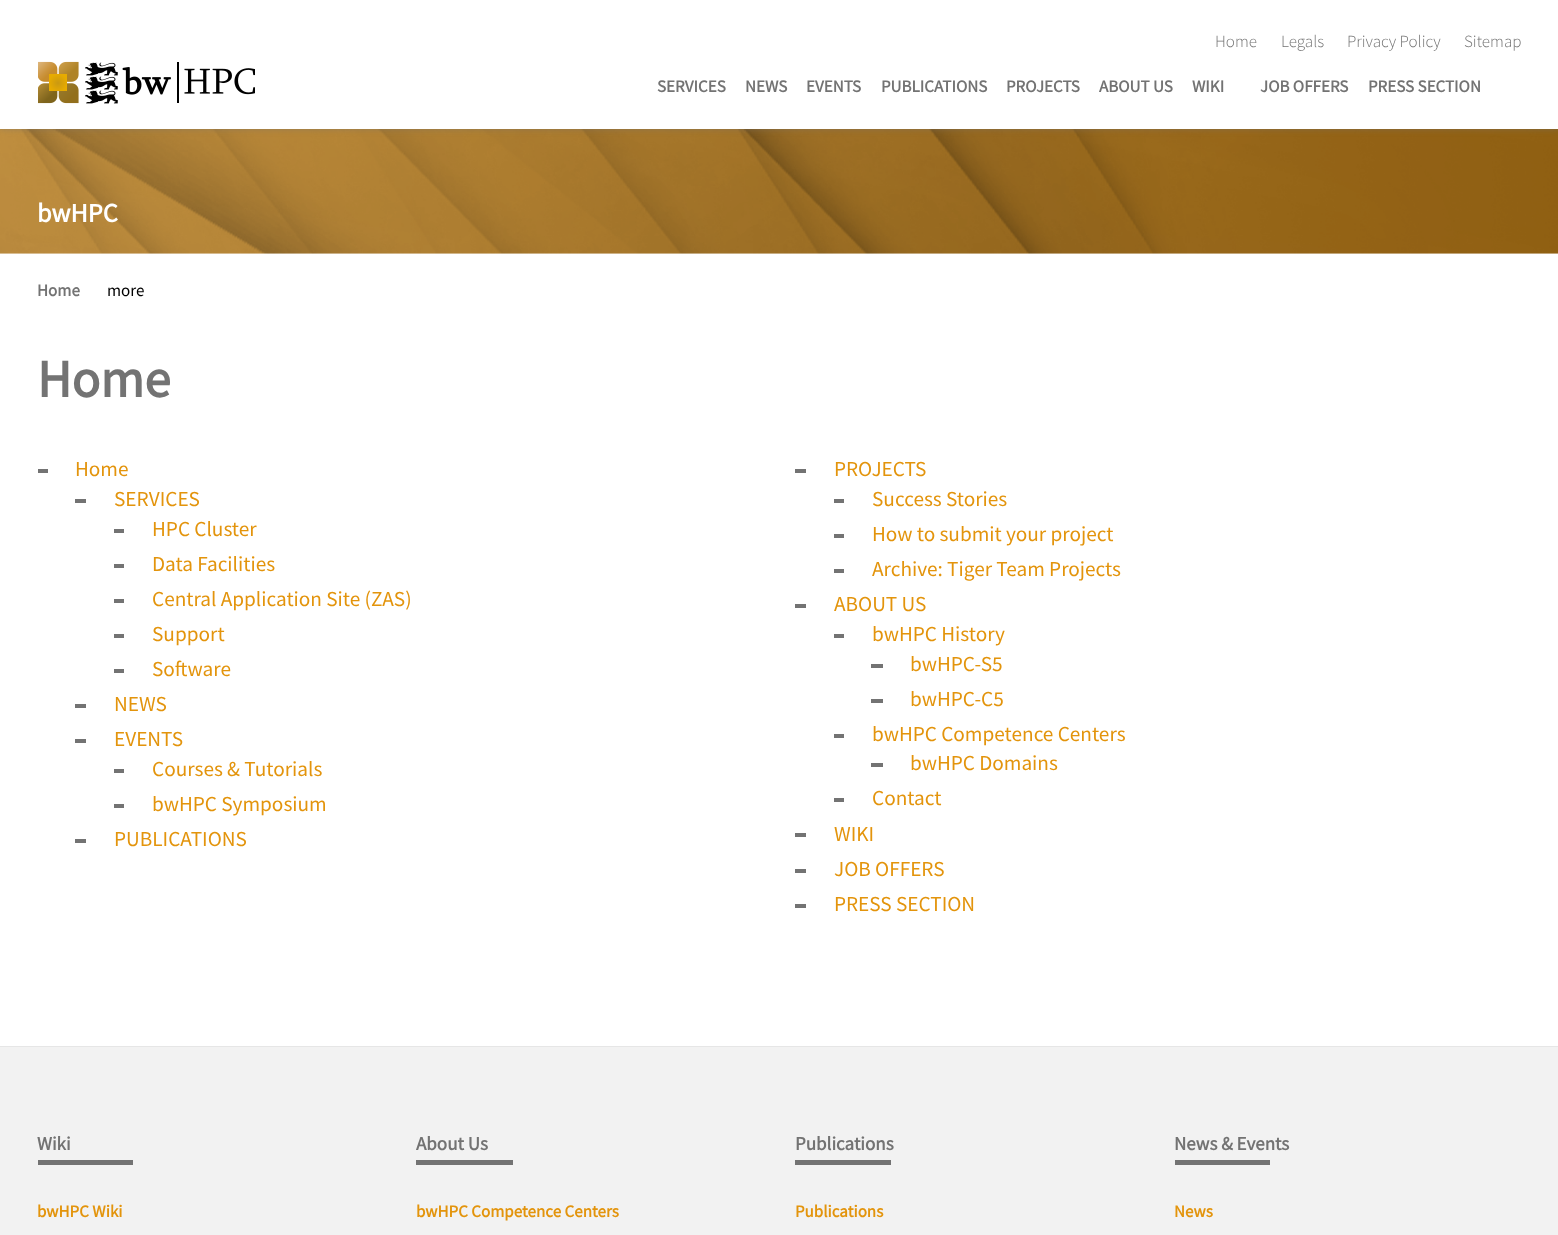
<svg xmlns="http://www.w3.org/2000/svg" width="1558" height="1235">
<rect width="100%" height="100%" fill="#fff"/>
<image x="0" y="129" width="1558" height="125" href="media/2.png"/>
<rect width="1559" height="129" fill="#73737380" filter="blur(3px)"/>
<rect width="1558" height="129" fill="#fff"/>
<image x="38" y="61" width="217" height="43" href="media/1.png"/>
<text x="1215" y="47" style="font-family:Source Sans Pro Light;font-size:17px;font-weight:300;fill:#737373">Home</text>
<text x="1281" y="47" style="font-family:Source Sans Pro Light;font-size:17px;font-weight:300;fill:#737373">Legals</text>
<text x="1347" y="47" style="font-family:Source Sans Pro Light;font-size:17px;font-weight:300;fill:#737373">Privacy Policy</text>
<text x="1464" y="47" style="font-family:Source Sans Pro Light;font-size:17px;font-weight:300;fill:#737373">Sitemap</text>
<text x="657" y="92" style="font-family:Source Sans Pro;font-size:17px;font-weight:bold;fill:#737373">SERVICES</text>
<text x="745" y="92" style="font-family:Source Sans Pro;font-size:17px;font-weight:bold;fill:#737373">NEWS</text>
<text x="806" y="92" style="font-family:Source Sans Pro;font-size:17px;font-weight:bold;fill:#737373">EVENTS</text>
<text x="881" y="92" style="font-family:Source Sans Pro;font-size:17px;font-weight:bold;fill:#737373">PUBLICATIONS</text>
<text x="1006" y="92" style="font-family:Source Sans Pro;font-size:17px;font-weight:bold;fill:#737373">PROJECTS</text>
<text x="1099" y="92" style="font-family:Source Sans Pro;font-size:17px;font-weight:bold;fill:#737373">ABOUT US</text>
<text x="1192" y="92" style="font-family:Source Sans Pro;font-size:17px;font-weight:bold;fill:#737373">WIKI</text>
<text x="1260" y="92" style="font-family:Source Sans Pro;font-size:17px;font-weight:bold;fill:#737373">JOB OFFERS</text>
<text x="1368" y="92" style="font-family:Source Sans Pro;font-size:17px;font-weight:bold;fill:#737373">PRESS SECTION</text>
<text x="37" y="222" style="font-family:Source Sans Pro;font-size:26.5px;font-weight:bold;fill:#fff">bwHPC</text>
<text x="37" y="296" style="font-family:Source Sans Pro;font-size:17px;font-weight:bold;fill:#737373">Home</text>
<text x="107" y="296" style="font-family:Source Sans Pro;font-size:17px;fill:#000">more</text>
<text x="37" y="397" style="font-family:Source Sans Pro;font-size:53px;font-weight:bold;fill:#737373">Home</text>
<rect x="38" y="469" width="10" height="4" fill="#737373"/>
<text x="75" y="476" style="font-family:Source Sans Pro;font-size:21.25px;fill:#e3940c">Home</text>
<rect x="75" y="499" width="11" height="4" fill="#737373"/>
<text x="114" y="506" style="font-family:Source Sans Pro;font-size:21.25px;fill:#e3940c">SERVICES</text>
<rect x="114" y="529" width="10" height="4" fill="#737373"/>
<text x="152" y="536" style="font-family:Source Sans Pro;font-size:21.25px;fill:#e3940c">HPC Cluster</text>
<rect x="114" y="564" width="10" height="4" fill="#737373"/>
<text x="152" y="571" style="font-family:Source Sans Pro;font-size:21.25px;fill:#e3940c">Data Facilities</text>
<rect x="114" y="599" width="10" height="4" fill="#737373"/>
<text x="152" y="606" style="font-family:Source Sans Pro;font-size:21.25px;fill:#e3940c">Central Application Site (ZAS)</text>
<rect x="114" y="634" width="10" height="4" fill="#737373"/>
<text x="152" y="641" style="font-family:Source Sans Pro;font-size:21.25px;fill:#e3940c">Support</text>
<rect x="114" y="669" width="10" height="4" fill="#737373"/>
<text x="152" y="676" style="font-family:Source Sans Pro;font-size:21.25px;fill:#e3940c">Software</text>
<rect x="75" y="704" width="11" height="4" fill="#737373"/>
<text x="114" y="711" style="font-family:Source Sans Pro;font-size:21.25px;fill:#e3940c">NEWS</text>
<rect x="75" y="739" width="11" height="4" fill="#737373"/>
<text x="114" y="746" style="font-family:Source Sans Pro;font-size:21.25px;fill:#e3940c">EVENTS</text>
<rect x="114" y="769" width="10" height="4" fill="#737373"/>
<text x="152" y="776" style="font-family:Source Sans Pro;font-size:21.25px;fill:#e3940c">Courses &amp; Tutorials</text>
<rect x="114" y="804" width="10" height="4" fill="#737373"/>
<text x="152" y="811" style="font-family:Source Sans Pro;font-size:21.25px;fill:#e3940c">bwHPC Symposium</text>
<rect x="75" y="839" width="11" height="4" fill="#737373"/>
<text x="114" y="846" style="font-family:Source Sans Pro;font-size:21.25px;fill:#e3940c">PUBLICATIONS</text>
<rect x="795" y="469" width="11" height="4" fill="#737373"/>
<text x="834" y="476" style="font-family:Source Sans Pro;font-size:21.25px;fill:#e3940c">PROJECTS</text>
<rect x="834" y="499" width="10" height="4" fill="#737373"/>
<text x="872" y="506" style="font-family:Source Sans Pro;font-size:21.25px;fill:#e3940c">Success Stories</text>
<rect x="834" y="534" width="10" height="4" fill="#737373"/>
<text x="872" y="541" style="font-family:Source Sans Pro;font-size:21.25px;fill:#e3940c">How to submit your project</text>
<rect x="834" y="569" width="10" height="4" fill="#737373"/>
<text x="872" y="576" style="font-family:Source Sans Pro;font-size:21.25px;fill:#e3940c">Archive: Tiger Team Projects</text>
<rect x="795" y="604" width="11" height="4" fill="#737373"/>
<text x="834" y="611" style="font-family:Source Sans Pro;font-size:21.25px;fill:#e3940c">ABOUT US</text>
<rect x="834" y="634" width="10" height="4" fill="#737373"/>
<text x="872" y="641" style="font-family:Source Sans Pro;font-size:21.25px;fill:#e3940c">bwHPC History</text>
<rect x="871" y="664" width="12" height="4" fill="#737373"/>
<text x="910" y="671" style="font-family:Source Sans Pro;font-size:21.25px;fill:#e3940c">bwHPC-S5</text>
<rect x="871" y="699" width="12" height="4" fill="#737373"/>
<text x="910" y="706" style="font-family:Source Sans Pro;font-size:21.25px;fill:#e3940c">bwHPC-C5</text>
<rect x="834" y="734" width="10" height="4" fill="#737373"/>
<text x="872" y="741" style="font-family:Source Sans Pro;font-size:21.25px;fill:#e3940c">bwHPC Competence Centers</text>
<rect x="871" y="763" width="12" height="4" fill="#737373"/>
<text x="910" y="770" style="font-family:Source Sans Pro;font-size:21.25px;fill:#e3940c">bwHPC Domains</text>
<rect x="834" y="798" width="10" height="4" fill="#737373"/>
<text x="872" y="805" style="font-family:Source Sans Pro;font-size:21.25px;fill:#e3940c">Contact</text>
<rect x="795" y="833" width="11" height="4" fill="#737373"/>
<text x="834" y="841" style="font-family:Source Sans Pro;font-size:21.25px;fill:#e3940c">WIKI</text>
<rect x="795" y="869" width="11" height="4" fill="#737373"/>
<text x="834" y="876" style="font-family:Source Sans Pro;font-size:21.25px;fill:#e3940c">JOB OFFERS</text>
<rect x="795" y="904" width="11" height="4" fill="#737373"/>
<text x="834" y="911" style="font-family:Source Sans Pro;font-size:21.25px;fill:#e3940c">PRESS SECTION</text>
<rect y="1047" width="1558" height="188" fill="#f2f2f2"/>
<rect y="1046" width="1558" height="1" fill="#e6e6e6"/>
<text x="37" y="1150" style="font-family:Source Sans Pro;font-size:19px;font-weight:bold;fill:#737373">Wiki</text>
<rect x="38" y="1160" width="95" height="5" fill="#737373"/>
<text x="37" y="1217" style="font-family:Source Sans Pro;font-size:17px;font-weight:bold;fill:#e3940c">bwHPC Wiki</text>
<text x="416" y="1150" style="font-family:Source Sans Pro;font-size:19px;font-weight:bold;fill:#737373">About Us</text>
<rect x="416" y="1160" width="97" height="5" fill="#737373"/>
<text x="416" y="1217" style="font-family:Source Sans Pro;font-size:17px;font-weight:bold;fill:#e3940c">bwHPC Competence Centers</text>
<text x="795" y="1150" style="font-family:Source Sans Pro;font-size:19px;font-weight:bold;fill:#737373">Publications</text>
<rect x="795" y="1160" width="96" height="5" fill="#737373"/>
<text x="795" y="1217" style="font-family:Source Sans Pro;font-size:17px;font-weight:bold;fill:#e3940c">Publications</text>
<text x="1174" y="1150" style="font-family:Source Sans Pro;font-size:19px;font-weight:bold;fill:#737373">News &amp; Events</text>
<rect x="1175" y="1160" width="95" height="5" fill="#737373"/>
<text x="1174" y="1217" style="font-family:Source Sans Pro;font-size:17px;font-weight:bold;fill:#e3940c">News</text>
</svg>
